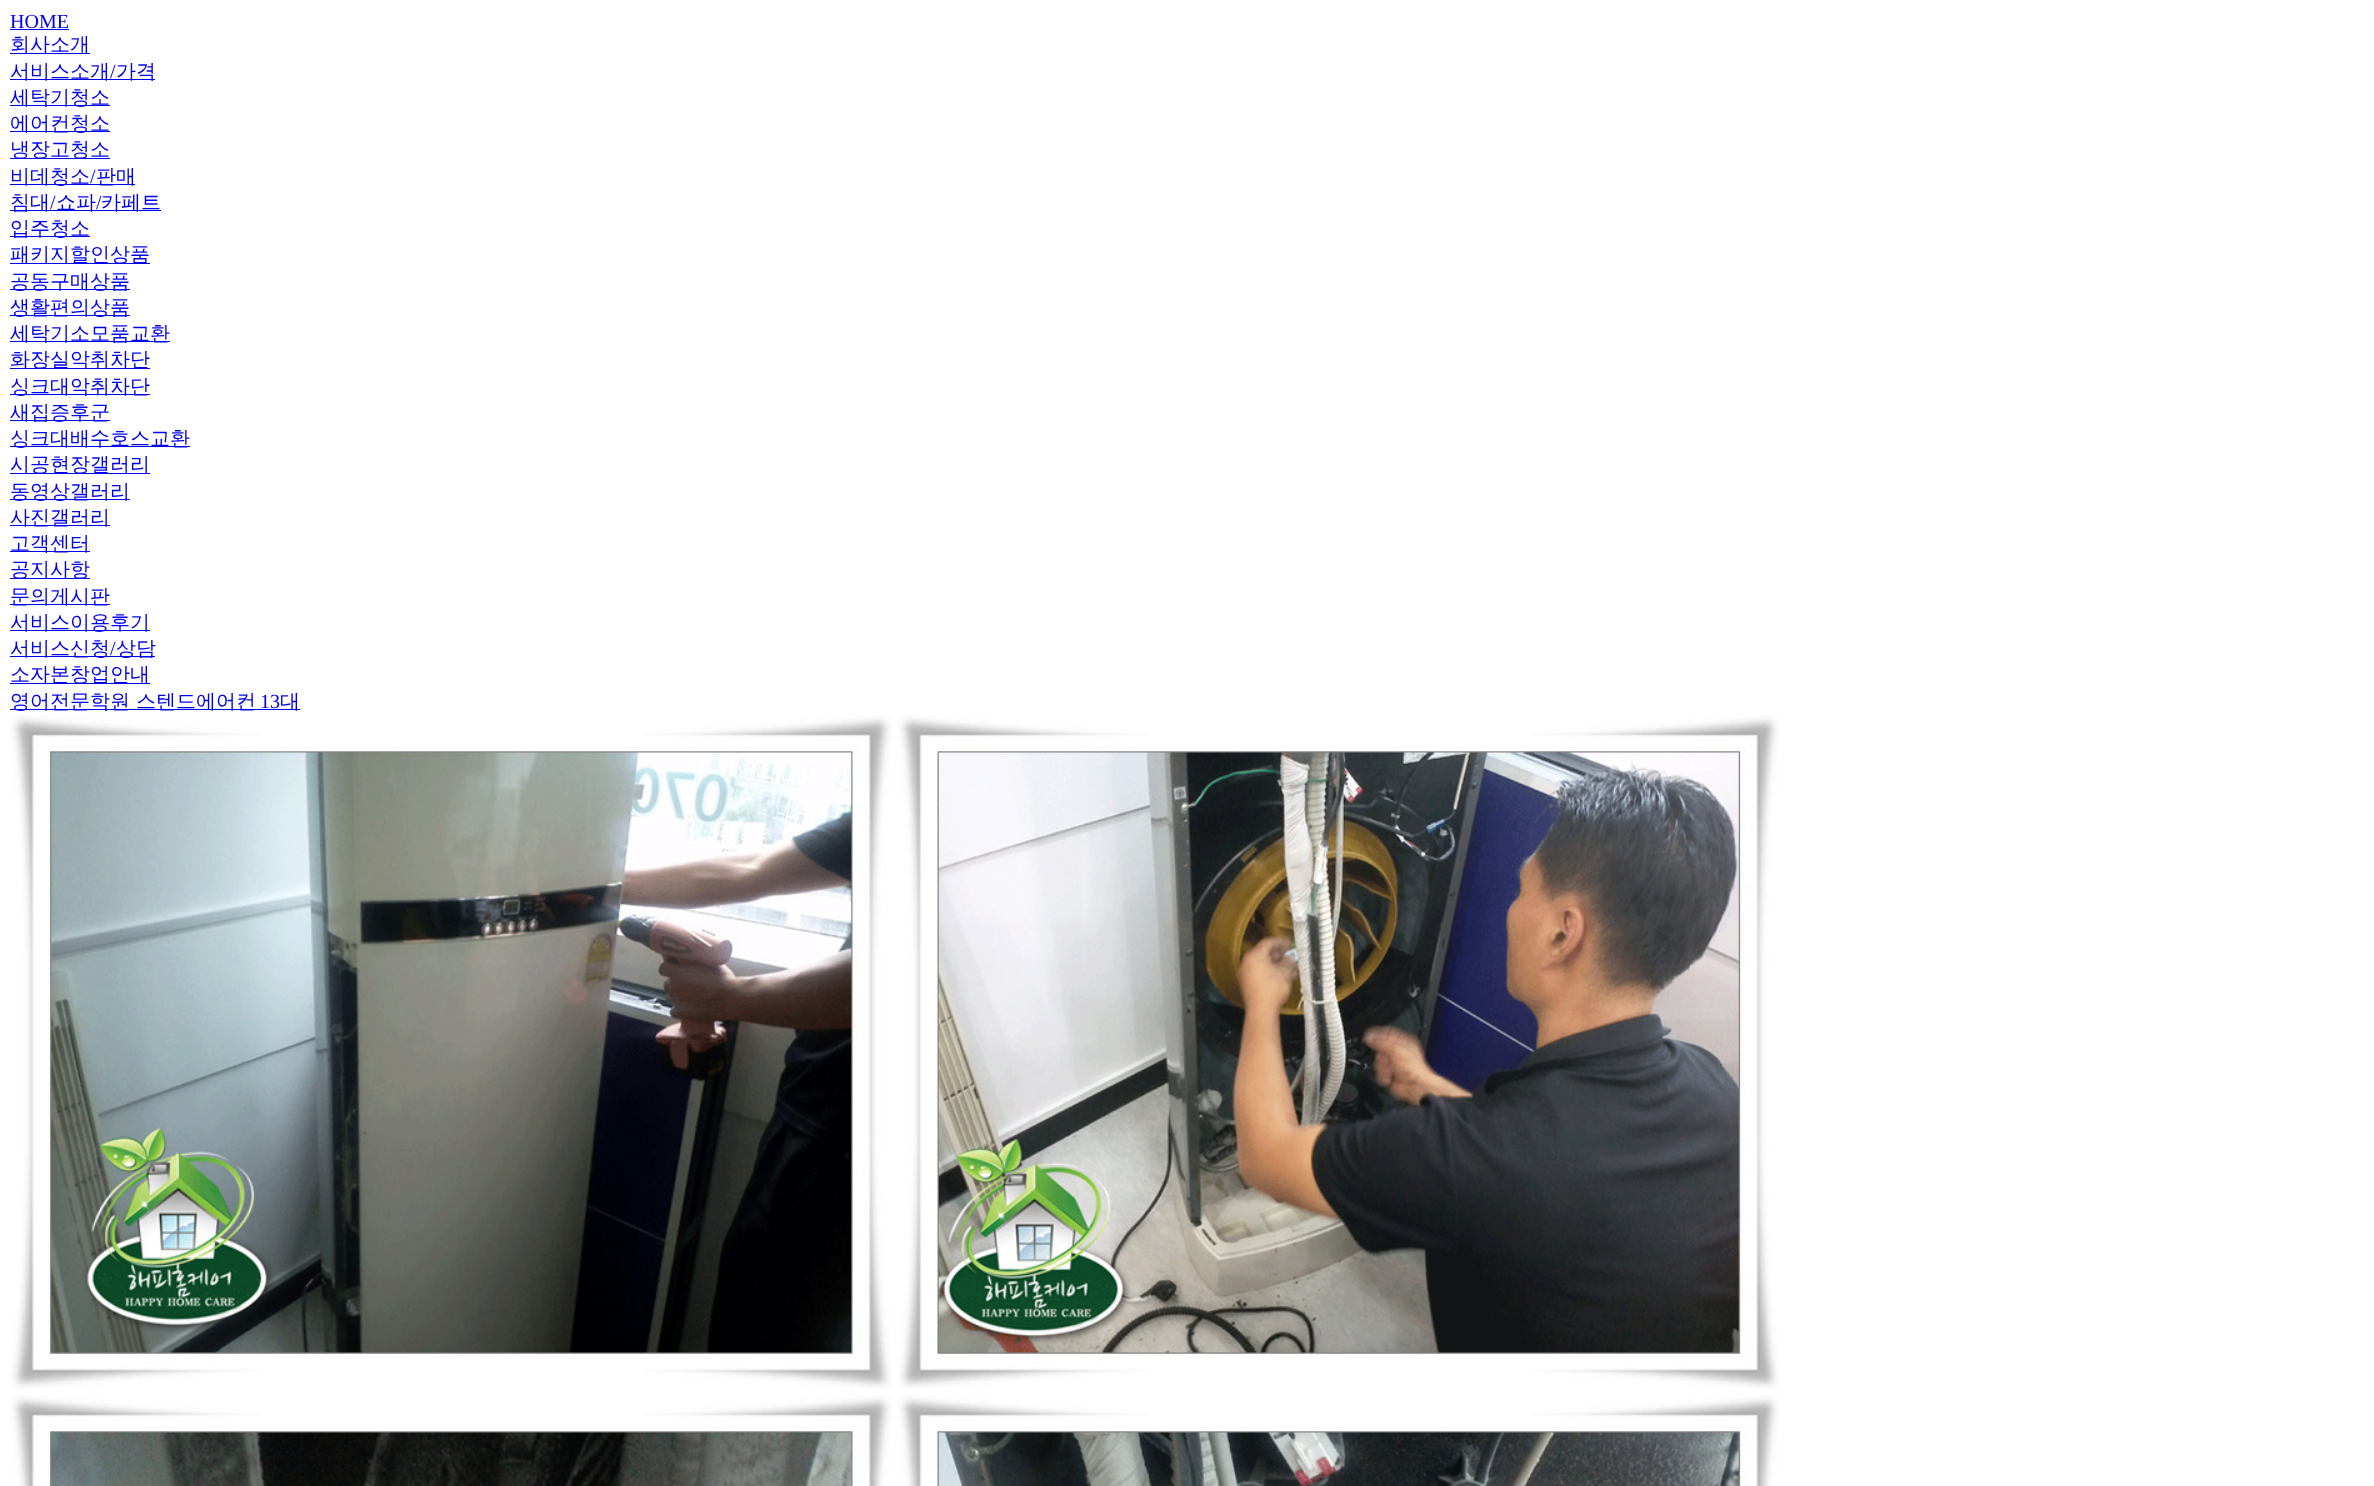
<svg xmlns="http://www.w3.org/2000/svg" width="2374" height="1486">
<rect width="100%" height="100%" fill="#fff"/>
<text x="10" y="28" style="font-family:Liberation Serif;font-size:20px;fill:#00e">HOME</text>
<rect x="10" y="29" width="59" height="1" fill="#00e"/>
<rect x="10" y="53" width="80" height="1" fill="#00e"/>
<text x="10" y="51" style="font-family:WenQuanYi Zen Hei;font-size:20px;font-weight:500;fill:#00e">회사소개</text>
<rect x="10" y="79" width="145" height="1" fill="#00e"/>
<text x="10" y="78" style="font-family:WenQuanYi Zen Hei;font-size:20px;font-weight:500;fill:#00e">서비스소개</text>
<text x="110" y="78" style="font-family:Liberation Serif;font-size:20px;fill:#00e">/</text>
<text x="116" y="78" style="font-family:WenQuanYi Zen Hei;font-size:20px;font-weight:500;fill:#00e">가격</text>
<rect x="10" y="105" width="100" height="1" fill="#00e"/>
<text x="10" y="104" style="font-family:WenQuanYi Zen Hei;font-size:20px;font-weight:500;fill:#00e">세탁기청소</text>
<rect x="10" y="131" width="100" height="1" fill="#00e"/>
<text x="10" y="130" style="font-family:WenQuanYi Zen Hei;font-size:20px;font-weight:500;fill:#00e">에어컨청소</text>
<rect x="10" y="158" width="100" height="1" fill="#00e"/>
<text x="10" y="156" style="font-family:WenQuanYi Zen Hei;font-size:20px;font-weight:500;fill:#00e">냉장고청소</text>
<rect x="10" y="184" width="125" height="1" fill="#00e"/>
<text x="10" y="183" style="font-family:WenQuanYi Zen Hei;font-size:20px;font-weight:500;fill:#00e">비데청소</text>
<text x="90" y="183" style="font-family:Liberation Serif;font-size:20px;fill:#00e">/</text>
<text x="96" y="183" style="font-family:WenQuanYi Zen Hei;font-size:20px;font-weight:500;fill:#00e">판매</text>
<rect x="10" y="210" width="151" height="1" fill="#00e"/>
<text x="10" y="209" style="font-family:WenQuanYi Zen Hei;font-size:20px;font-weight:500;fill:#00e">침대</text>
<text x="50" y="209" style="font-family:Liberation Serif;font-size:20px;fill:#00e">/</text>
<text x="56" y="209" style="font-family:WenQuanYi Zen Hei;font-size:20px;font-weight:500;fill:#00e">쇼파</text>
<text x="96" y="209" style="font-family:Liberation Serif;font-size:20px;fill:#00e">/</text>
<text x="101" y="209" style="font-family:WenQuanYi Zen Hei;font-size:20px;font-weight:500;fill:#00e">카페트</text>
<rect x="10" y="236" width="80" height="1" fill="#00e"/>
<text x="10" y="235" style="font-family:WenQuanYi Zen Hei;font-size:20px;font-weight:500;fill:#00e">입주청소</text>
<rect x="10" y="263" width="140" height="1" fill="#00e"/>
<text x="10" y="261" style="font-family:WenQuanYi Zen Hei;font-size:20px;font-weight:500;fill:#00e">패키지할인상품</text>
<rect x="10" y="289" width="120" height="1" fill="#00e"/>
<text x="10" y="288" style="font-family:WenQuanYi Zen Hei;font-size:20px;font-weight:500;fill:#00e">공동구매상품</text>
<rect x="10" y="315" width="120" height="1" fill="#00e"/>
<text x="10" y="314" style="font-family:WenQuanYi Zen Hei;font-size:20px;font-weight:500;fill:#00e">생활편의상품</text>
<rect x="10" y="341" width="160" height="1" fill="#00e"/>
<text x="10" y="340" style="font-family:WenQuanYi Zen Hei;font-size:20px;font-weight:500;fill:#00e">세탁기소모품교환</text>
<rect x="10" y="368" width="140" height="1" fill="#00e"/>
<text x="10" y="366" style="font-family:WenQuanYi Zen Hei;font-size:20px;font-weight:500;fill:#00e">화장실악취차단</text>
<rect x="10" y="394" width="140" height="1" fill="#00e"/>
<text x="10" y="393" style="font-family:WenQuanYi Zen Hei;font-size:20px;font-weight:500;fill:#00e">싱크대악취차단</text>
<rect x="10" y="420" width="100" height="1" fill="#00e"/>
<text x="10" y="419" style="font-family:WenQuanYi Zen Hei;font-size:20px;font-weight:500;fill:#00e">새집증후군</text>
<rect x="10" y="446" width="180" height="1" fill="#00e"/>
<text x="10" y="445" style="font-family:WenQuanYi Zen Hei;font-size:20px;font-weight:500;fill:#00e">싱크대배수호스교환</text>
<rect x="10" y="473" width="140" height="1" fill="#00e"/>
<text x="10" y="471" style="font-family:WenQuanYi Zen Hei;font-size:20px;font-weight:500;fill:#00e">시공현장갤러리</text>
<rect x="10" y="499" width="120" height="1" fill="#00e"/>
<text x="10" y="498" style="font-family:WenQuanYi Zen Hei;font-size:20px;font-weight:500;fill:#00e">동영상갤러리</text>
<rect x="10" y="525" width="100" height="1" fill="#00e"/>
<text x="10" y="524" style="font-family:WenQuanYi Zen Hei;font-size:20px;font-weight:500;fill:#00e">사진갤러리</text>
<rect x="10" y="551" width="80" height="1" fill="#00e"/>
<text x="10" y="550" style="font-family:WenQuanYi Zen Hei;font-size:20px;font-weight:500;fill:#00e">고객센터</text>
<rect x="10" y="578" width="80" height="1" fill="#00e"/>
<text x="10" y="576" style="font-family:WenQuanYi Zen Hei;font-size:20px;font-weight:500;fill:#00e">공지사항</text>
<rect x="10" y="604" width="100" height="1" fill="#00e"/>
<text x="10" y="603" style="font-family:WenQuanYi Zen Hei;font-size:20px;font-weight:500;fill:#00e">문의게시판</text>
<rect x="10" y="630" width="140" height="1" fill="#00e"/>
<text x="10" y="629" style="font-family:WenQuanYi Zen Hei;font-size:20px;font-weight:500;fill:#00e">서비스이용후기</text>
<rect x="10" y="656" width="145" height="1" fill="#00e"/>
<text x="10" y="655" style="font-family:WenQuanYi Zen Hei;font-size:20px;font-weight:500;fill:#00e">서비스신청</text>
<text x="110" y="655" style="font-family:Liberation Serif;font-size:20px;fill:#00e">/</text>
<text x="116" y="655" style="font-family:WenQuanYi Zen Hei;font-size:20px;font-weight:500;fill:#00e">상담</text>
<rect x="10" y="683" width="140" height="1" fill="#00e"/>
<text x="10" y="681" style="font-family:WenQuanYi Zen Hei;font-size:20px;font-weight:500;fill:#00e">소자본창업안내</text>
<rect x="10" y="709" width="290" height="1" fill="#00e"/>
<text x="10" y="708" style="font-family:WenQuanYi Zen Hei;font-size:20px;font-weight:500;fill:#00e">영어전문학원 스텐드에어컨</text>
<text x="260" y="708" style="font-family:Liberation Serif;font-size:20px;fill:#00e">13</text>
<text x="280" y="708" style="font-family:WenQuanYi Zen Hei;font-size:20px;font-weight:500;fill:#00e">대</text>
<image x="10" y="715" width="882" height="675" href="media/1.png"/>
<image x="898" y="715" width="881" height="675" href="media/2.png"/>
<image x="11" y="1395" width="881" height="91" href="media/3.png"/>
<image x="898" y="1395" width="881" height="91" href="media/4.png"/>
</svg>
